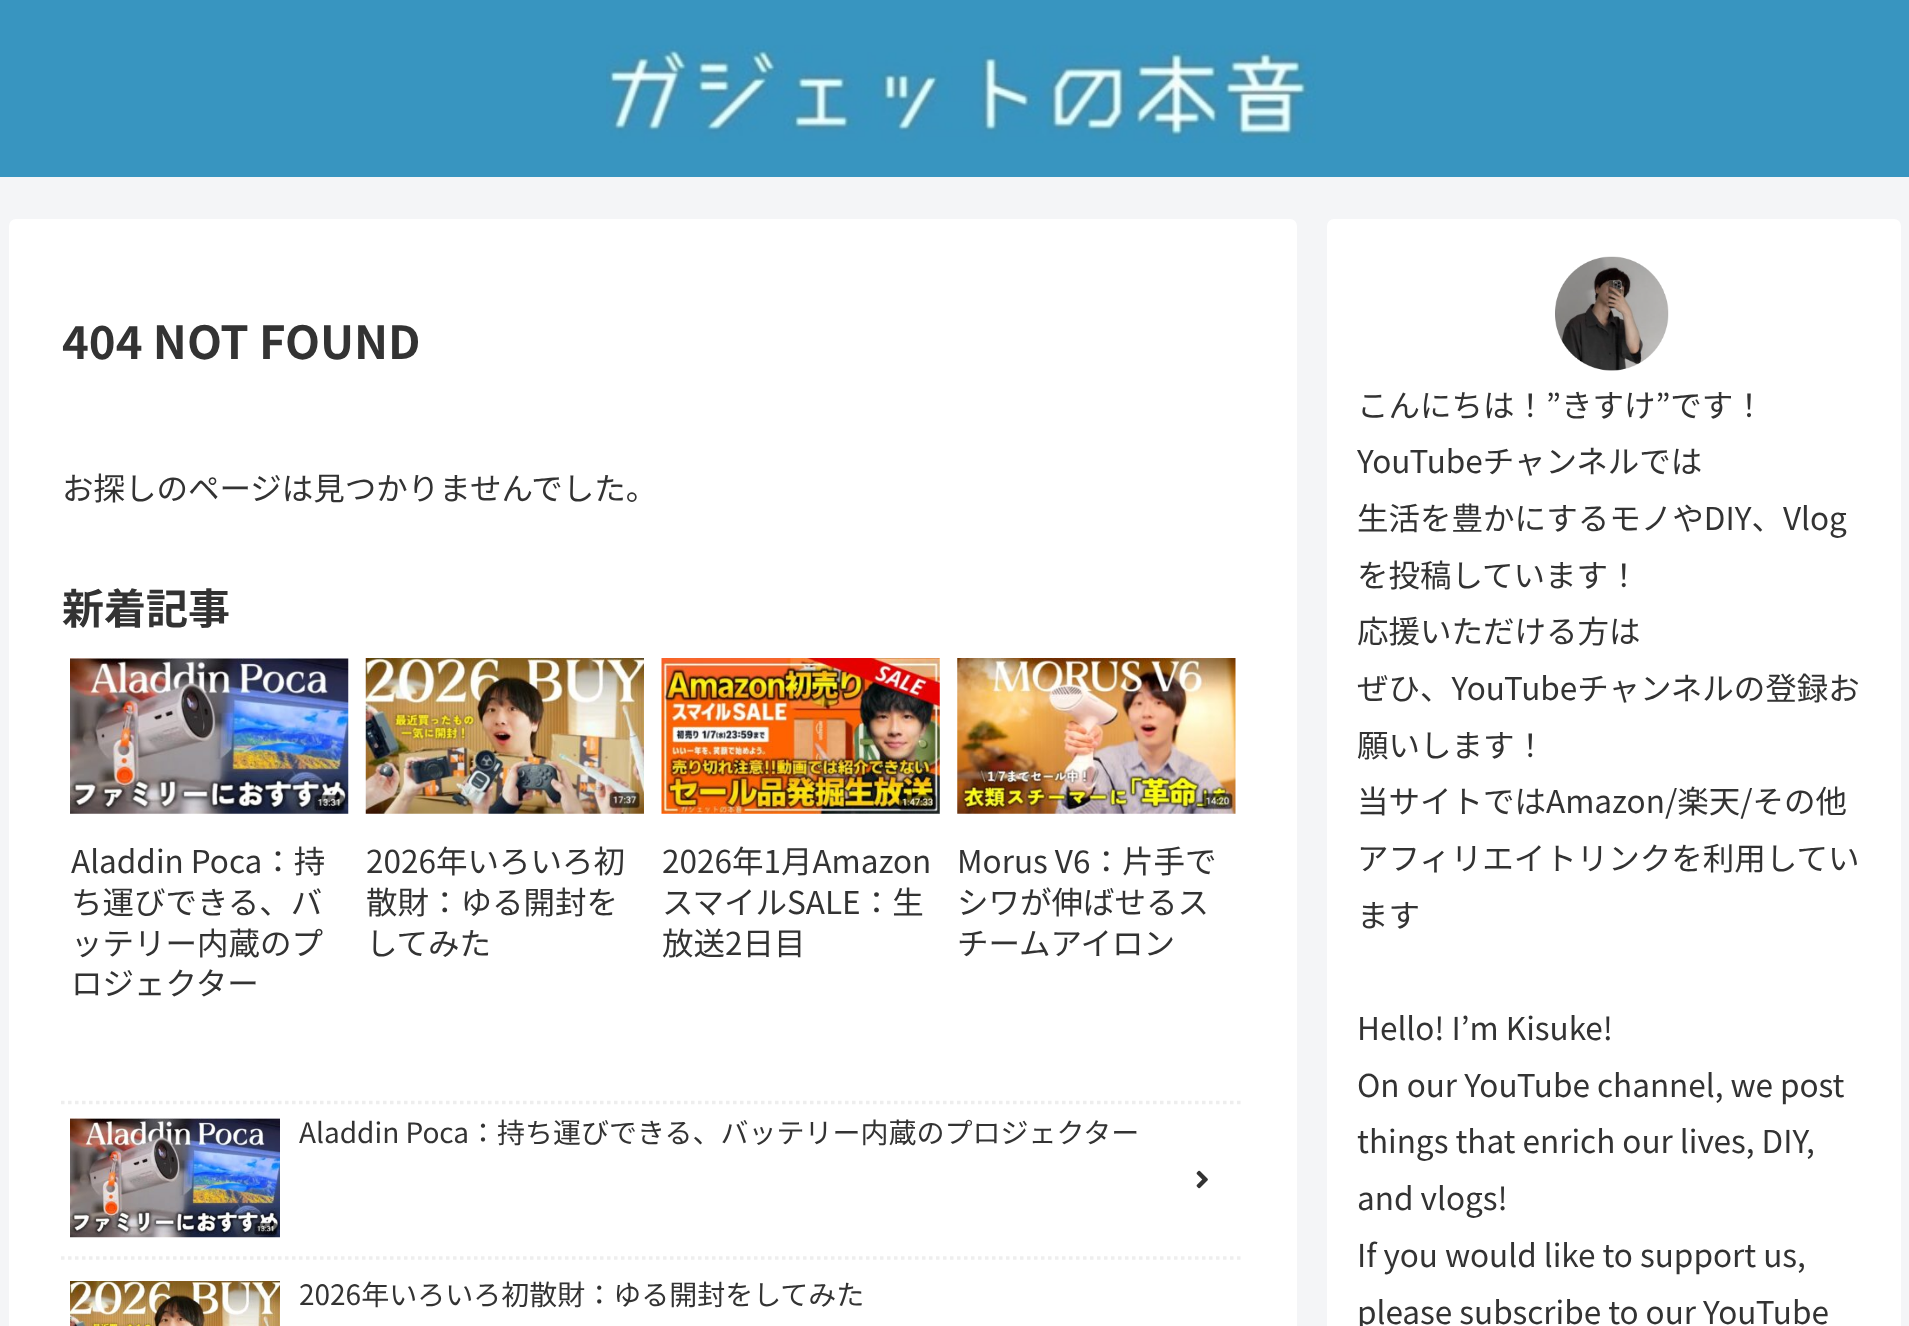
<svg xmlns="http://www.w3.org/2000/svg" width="1909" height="1326">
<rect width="100%" height="100%" fill="#f4f5f7"/>
<rect width="1909" height="177" fill="#3895c0"/>
<image x="606" y="45" width="710" height="98" href="media/1.png"/>
<rect x="9" y="219" width="1288" height="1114" rx="7" fill="#fff"/>
<text x="62" y="359" style="font-family:Noto Sans JP;font-size:45.5px;font-weight:bold;fill:#333">404 NOT FOUND</text>
<text x="62" y="500" style="font-family:Noto Sans JP;font-size:31.5px;fill:#333">お探しのページは見つかりませんでした。</text>
<text x="62" y="624" style="font-family:Noto Sans JP;font-size:42px;font-weight:bold;fill:#333">新着記事</text>
<image x="70" y="658" width="279" height="156" href="media/2.png"/>
<text x="71" y="873" style="font-family:Noto Sans JP;font-size:31.5px;fill:#333">Aladdin Poca：持</text>
<text x="71" y="914" style="font-family:Noto Sans JP;font-size:31.5px;fill:#333">ち運びできる、バ</text>
<text x="71" y="955" style="font-family:Noto Sans JP;font-size:31.5px;fill:#333">ッテリー内蔵のプ</text>
<text x="71" y="995" style="font-family:Noto Sans JP;font-size:31.5px;fill:#333">ロジェクター</text>
<image x="365" y="658" width="279" height="156" href="media/3.png"/>
<text x="366" y="873" style="font-family:Noto Sans JP;font-size:31.5px;fill:#333">2026年いろいろ初</text>
<text x="366" y="914" style="font-family:Noto Sans JP;font-size:31.5px;fill:#333">散財：ゆる開封を</text>
<text x="366" y="955" style="font-family:Noto Sans JP;font-size:31.5px;fill:#333">してみた</text>
<image x="661" y="658" width="279" height="156" href="media/4.png"/>
<text x="662" y="873" style="font-family:Noto Sans JP;font-size:31.5px;fill:#333">2026年1月Amazon</text>
<text x="662" y="914" style="font-family:Noto Sans JP;font-size:31.5px;fill:#333">スマイルSALE：生</text>
<text x="662" y="955" style="font-family:Noto Sans JP;font-size:31.5px;fill:#333">放送2日目</text>
<image x="957" y="658" width="279" height="156" href="media/5.png"/>
<text x="957" y="873" style="font-family:Noto Sans JP;font-size:31.5px;fill:#333">Morus V6：片手で</text>
<text x="957" y="914" style="font-family:Noto Sans JP;font-size:31.5px;fill:#333">シワが伸ばせるス</text>
<text x="957" y="955" style="font-family:Noto Sans JP;font-size:31.5px;fill:#333">チームアイロン</text>
<path d="M61 1102.5h1183" fill="none" stroke="#eee" stroke-width="3.5" stroke-dasharray="3.5 3.5"/>
<path d="M61 1258h1183" fill="none" stroke="#eee" stroke-width="3.5" stroke-dasharray="3.5 3.5"/>
<image x="70" y="1118" width="210" height="120" href="media/6.png"/>
<text x="299" y="1143" style="font-family:Noto Sans JP;font-size:28px;fill:#333">Aladdin Poca：持ち運びできる、バッテリー内蔵のプロジェクター</text>
<image x="1196" y="1170" width="12" height="19" href="media/7.png"/>
<image x="70" y="1281" width="210" height="45" href="media/8.png"/>
<text x="299" y="1305" style="font-family:Noto Sans JP;font-size:28px;fill:#333">2026年いろいろ初散財：ゆる開封をしてみた</text>
<rect x="1327" y="219" width="574" height="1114" rx="7" fill="#fff"/>
<image x="1555" y="256" width="114" height="115" href="media/9.png"/>
<text x="1357" y="417" style="font-family:Noto Sans JP;font-size:31.5px;fill:#333">こんにちは！”きすけ”です！</text>
<text x="1357" y="473" style="font-family:Noto Sans JP;font-size:31.5px;fill:#333">YouTubeチャンネルでは</text>
<text x="1357" y="530" style="font-family:Noto Sans JP;font-size:31.5px;fill:#333">生活を豊かにするモノやDIY、Vlog</text>
<text x="1357" y="587" style="font-family:Noto Sans JP;font-size:31.5px;fill:#333">を投稿しています！</text>
<text x="1357" y="643" style="font-family:Noto Sans JP;font-size:31.5px;fill:#333">応援いただける方は</text>
<text x="1357" y="700" style="font-family:Noto Sans JP;font-size:31.5px;fill:#333">ぜひ、YouTubeチャンネルの登録お</text>
<text x="1357" y="757" style="font-family:Noto Sans JP;font-size:31.5px;fill:#333">願いします！</text>
<text x="1357" y="813" style="font-family:Noto Sans JP;font-size:31.5px;fill:#333">当サイトではAmazon/楽天/その他</text>
<text x="1357" y="870" style="font-family:Noto Sans JP;font-size:31.5px;fill:#333">アフィリエイトリンクを利用してい</text>
<text x="1357" y="927" style="font-family:Noto Sans JP;font-size:31.5px;fill:#333">ます</text>
<text x="1357" y="1040" style="font-family:Noto Sans JP;font-size:31.5px;fill:#333">Hello! I’m Kisuke!</text>
<text x="1357" y="1097" style="font-family:Noto Sans JP;font-size:31.5px;fill:#333">On our YouTube channel, we post</text>
<text x="1357" y="1153" style="font-family:Noto Sans JP;font-size:31.5px;fill:#333">things that enrich our lives, DIY,</text>
<text x="1357" y="1210" style="font-family:Noto Sans JP;font-size:31.5px;fill:#333">and vlogs!</text>
<text x="1357" y="1267" style="font-family:Noto Sans JP;font-size:31.5px;fill:#333">If you would like to support us,</text>
<text x="1357" y="1324" style="font-family:Noto Sans JP;font-size:31.5px;fill:#333">please subscribe to our YouTube</text>
</svg>
